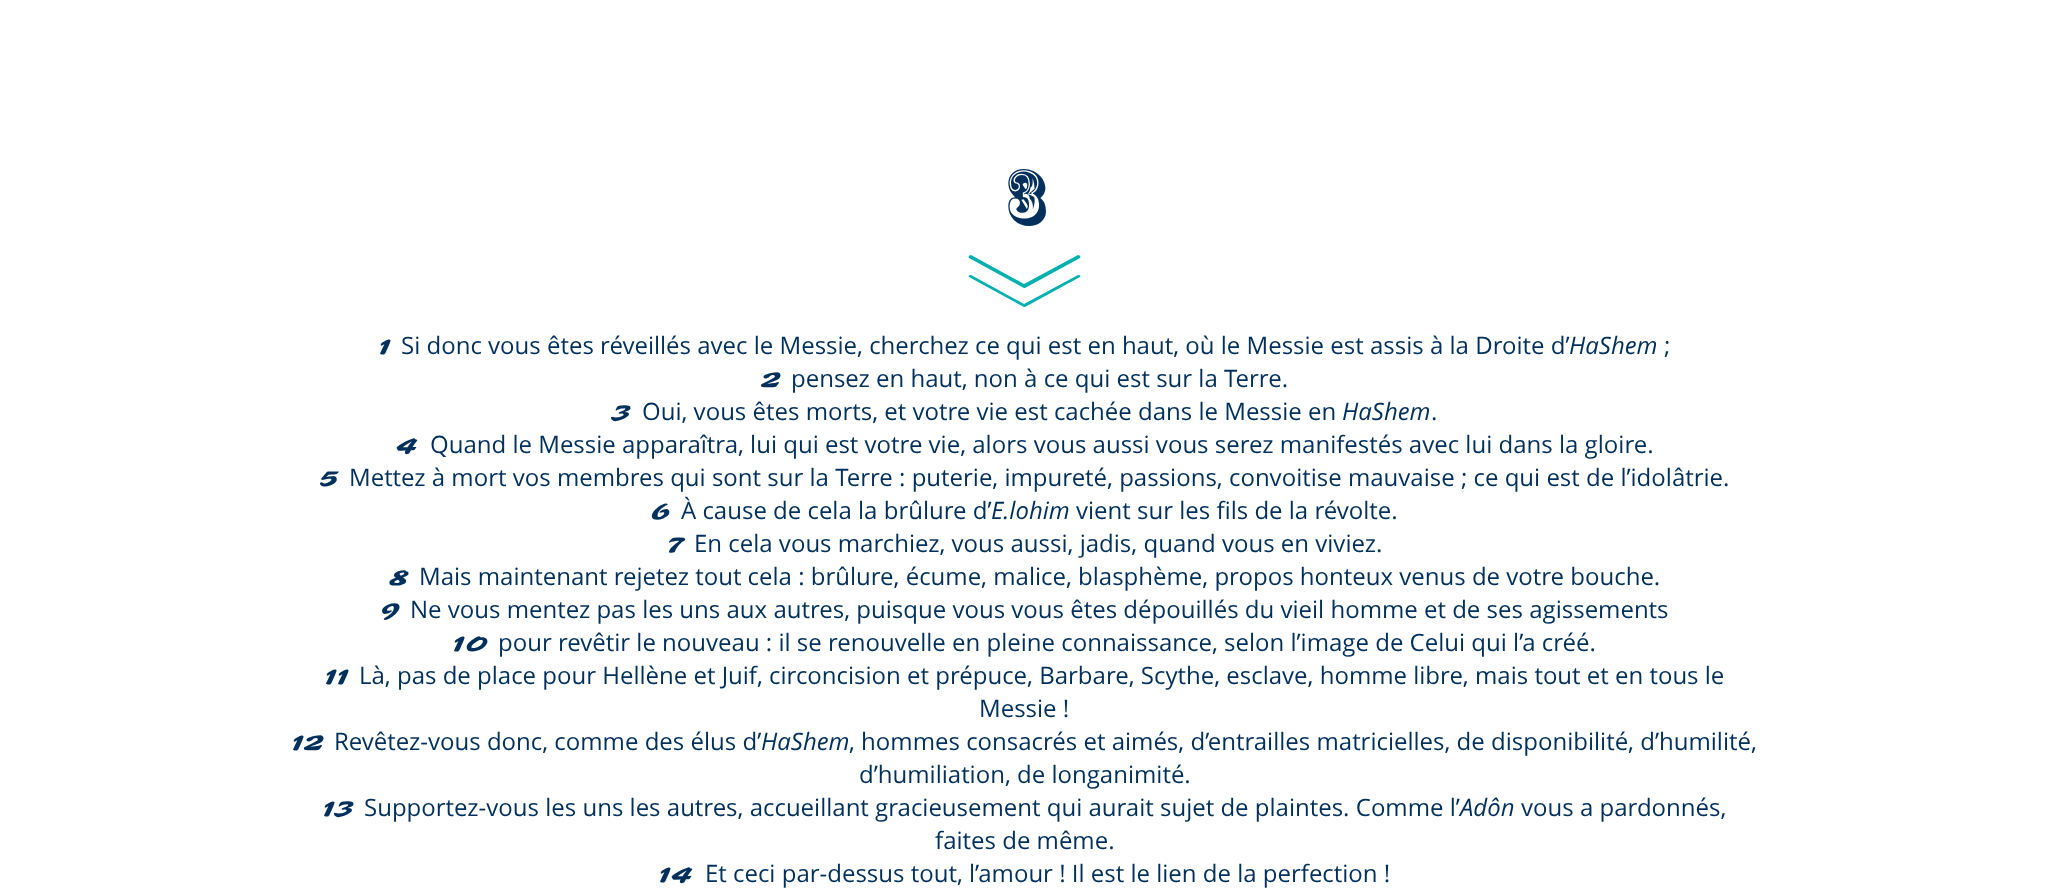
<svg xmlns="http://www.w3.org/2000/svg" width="2048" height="890">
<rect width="100%" height="100%" fill="#fff"/>
<text x="1004" y="218" style="font-family:'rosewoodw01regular';font-size:75px;fill:#00305b">3</text>
<path d="M971 275l53 29l54-29c2 0 3 1 2 2l-55 30h-1l-55-30c-1-1 0-2 2-2z" fill="#01b1af"/>
<path d="M971 255l53 29l54-29c2 0 3 2 2 3l-55 30h-1l-55-30c-1-1 0-3 2-3z" fill="#01b1af"/>
<text x="379" y="354" style="font-family:Sarina;font-size:24px;fill:#00305b">1</text>
<text x="401" y="354" style="font-family:Open Sans;font-size:24px;fill:#00305b">Si donc vous êtes réveillés avec le Messie, cherchez ce qui est en haut, où le Messie est assis à la Droite d’</text>
<text x="1569" y="354" style="font-family:Open Sans;font-size:24px;font-style:italic;fill:#00305b">HaShem</text>
<text x="1664" y="354" style="font-family:Open Sans;font-size:24px;fill:#00305b">;</text>
<text x="761" y="387" style="font-family:Sarina;font-size:24px;fill:#00305b">2</text>
<text x="791" y="387" style="font-family:Open Sans;font-size:24px;fill:#00305b">pensez en haut, non à ce qui est sur la Terre.</text>
<text x="612" y="420" style="font-family:Sarina;font-size:24px;fill:#00305b">3</text>
<text x="642" y="420" style="font-family:Open Sans;font-size:24px;fill:#00305b">Oui, vous êtes morts, et votre vie est cachée dans le Messie en</text>
<text x="1342" y="420" style="font-family:Open Sans;font-size:24px;font-style:italic;fill:#00305b">HaShem</text>
<text x="1431" y="420" style="font-family:Open Sans;font-size:24px;fill:#00305b">.</text>
<text x="396" y="453" style="font-family:Sarina;font-size:24px;fill:#00305b">4</text>
<text x="430" y="453" style="font-family:Open Sans;font-size:24px;fill:#00305b">Quand le Messie apparaîtra, lui qui est votre vie, alors vous aussi vous serez manifestés avec lui dans la gloire.</text>
<text x="319" y="486" style="font-family:Sarina;font-size:24px;fill:#00305b">5</text>
<text x="349" y="486" style="font-family:Open Sans;font-size:24px;fill:#00305b">Mettez à mort vos membres qui sont sur la Terre : puterie, impureté, passions, convoitise mauvaise ; ce qui est de l’idolâtrie.</text>
<text x="651" y="519" style="font-family:Sarina;font-size:24px;fill:#00305b">6</text>
<text x="681" y="519" style="font-family:Open Sans;font-size:24px;fill:#00305b">À cause de cela la brûlure d’</text>
<text x="991" y="519" style="font-family:Open Sans;font-size:24px;font-style:italic;fill:#00305b">E.lohim</text>
<text x="1076" y="519" style="font-family:Open Sans;font-size:24px;fill:#00305b">vient sur les fils de la révolte.</text>
<text x="666" y="552" style="font-family:Sarina;font-size:24px;fill:#00305b">7</text>
<text x="694" y="552" style="font-family:Open Sans;font-size:24px;fill:#00305b">En cela vous marchiez, vous aussi, jadis, quand vous en viviez.</text>
<text x="389" y="585" style="font-family:Sarina;font-size:24px;fill:#00305b">8</text>
<text x="419" y="585" style="font-family:Open Sans;font-size:24px;fill:#00305b">Mais maintenant rejetez tout cela : brûlure, écume, malice, blasphème, propos honteux venus de votre bouche.</text>
<text x="380" y="618" style="font-family:Sarina;font-size:24px;fill:#00305b">9</text>
<text x="410" y="618" style="font-family:Open Sans;font-size:24px;fill:#00305b">Ne vous mentez pas les uns aux autres, puisque vous vous êtes dépouillés du vieil homme et de ses agissements</text>
<text x="453" y="651" style="font-family:Sarina;font-size:24px;fill:#00305b">10</text>
<text x="498" y="651" style="font-family:Open Sans;font-size:24px;fill:#00305b">pour revêtir le nouveau : il se renouvelle en pleine connaissance, selon l’image de Celui qui l’a créé.</text>
<text x="325" y="684" style="font-family:Sarina;font-size:24px;fill:#00305b">11</text>
<text x="359" y="684" style="font-family:Open Sans;font-size:24px;fill:#00305b">Là, pas de place pour Hellène et Juif, circoncision et prépuce, Barbare, Scythe, esclave, homme libre, mais tout et en tous le</text>
<text x="979" y="717" style="font-family:Open Sans;font-size:24px;fill:#00305b">Messie !</text>
<text x="292" y="750" style="font-family:Sarina;font-size:24px;fill:#00305b">12</text>
<text x="334" y="750" style="font-family:Open Sans;font-size:24px;fill:#00305b">Revêtez-vous donc, comme des élus d’</text>
<text x="761" y="750" style="font-family:Open Sans;font-size:24px;font-style:italic;fill:#00305b">HaShem</text>
<text x="849" y="750" style="font-family:Open Sans;font-size:24px;fill:#00305b">, hommes consacrés et aimés, d’entrailles matricielles, de disponibilité, d’humilité,</text>
<text x="859" y="783" style="font-family:Open Sans;font-size:24px;fill:#00305b">d’humiliation, de longanimité.</text>
<text x="323" y="816" style="font-family:Sarina;font-size:24px;fill:#00305b">13</text>
<text x="364" y="816" style="font-family:Open Sans;font-size:24px;fill:#00305b">Supportez-vous les uns les autres, accueillant gracieusement qui aurait sujet de plaintes. Comme l’</text>
<text x="1460" y="816" style="font-family:Open Sans;font-size:24px;font-style:italic;fill:#00305b">Adôn</text>
<text x="1521" y="816" style="font-family:Open Sans;font-size:24px;fill:#00305b">vous a pardonnés,</text>
<text x="935" y="849" style="font-family:Open Sans;font-size:24px;fill:#00305b">faites de même.</text>
<text x="659" y="882" style="font-family:Sarina;font-size:24px;fill:#00305b">14</text>
<text x="705" y="882" style="font-family:Open Sans;font-size:24px;fill:#00305b">Et ceci par-dessus tout, l’amour ! Il est le lien de la perfection !</text>
</svg>
